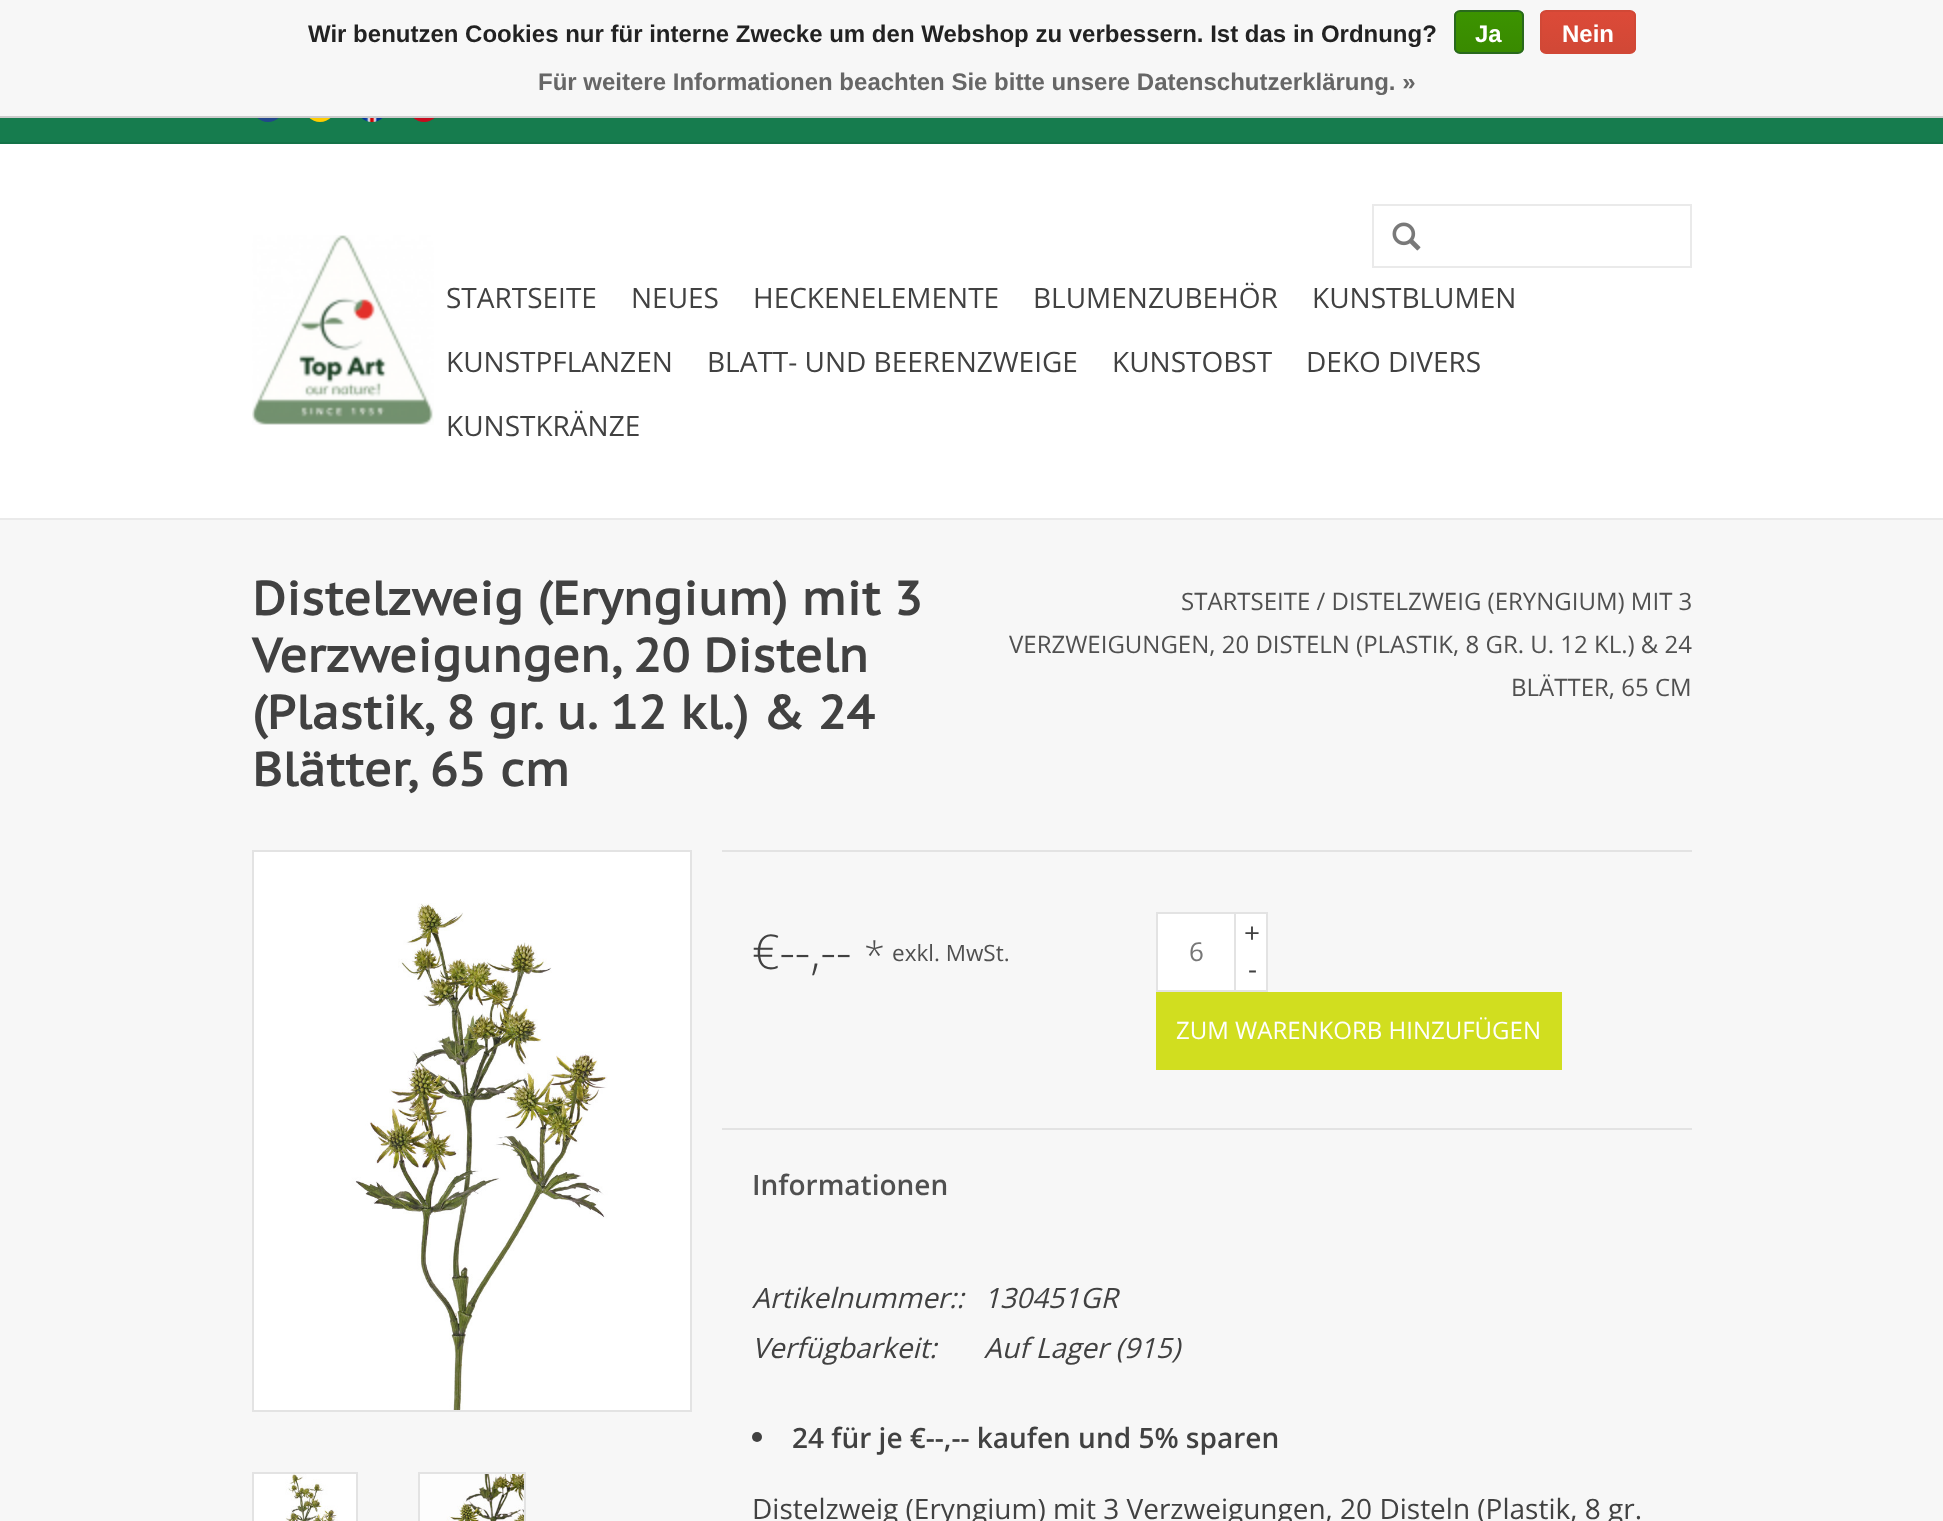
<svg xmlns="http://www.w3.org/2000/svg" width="1943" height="1521">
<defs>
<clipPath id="clip1"><rect x="1454" y="10" width="70" height="44" rx="6"/></clipPath>
<linearGradient id="g1" gradientUnits="userSpaceOnUse" x1="1489" y1="12" x2="1489" y2="52"><stop offset="0" stop-color="#3c9300"/><stop offset="1" stop-color="#398a00"/></linearGradient>
<clipPath id="clip2"><rect x="1540" y="10" width="96" height="44" rx="6"/></clipPath>
<linearGradient id="g2" gradientUnits="userSpaceOnUse" x1="1588" y1="12" x2="1588" y2="52"><stop offset="0" stop-color="#dc4a38"/><stop offset="1" stop-color="#d14836"/></linearGradient>
</defs>
<rect width="100%" height="100%" fill="#f7f7f7"/>
<rect y="116" width="1943" height="2" fill="#ccc"/>
<text x="308" y="42" style="font-family:Liberation Sans;font-size:24px;font-weight:bold;fill:#222">Wir benutzen Cookies nur für interne Zwecke um den Webshop zu verbessern. Ist das in Ordnung?</text>
<g clip-path="url(#clip1)">
<rect x="1454" y="12" width="70" height="40" fill="url(#g1)"/>
</g>
<rect x="1455" y="11" width="68" height="42" rx="5" fill="none" stroke="#29691d" stroke-width="2"/>
<text x="1475" y="42" style="font-family:Liberation Sans;font-size:24px;font-weight:bold;fill:#fff">Ja</text>
<g clip-path="url(#clip2)">
<rect x="1540" y="12" width="96" height="40" fill="url(#g2)"/>
</g>
<rect x="1541" y="11" width="94" height="42" rx="5" fill="none" stroke="#d14836" stroke-width="2"/>
<text x="1562" y="42" style="font-family:Liberation Sans;font-size:24px;font-weight:bold;fill:#fff">Nein</text>
<text x="538" y="90" style="font-family:Liberation Sans;font-size:24px;font-weight:bold;fill:#666">Für weitere Informationen beachten Sie bitte unsere Datenschutzerklärung. »</text>
<rect y="144" width="1943" height="374" fill="#fff"/>
<rect y="518" width="1943" height="2" fill="#eaeaea"/>
<rect y="118" width="1943" height="24" fill="#167c4e"/>
<rect y="142" width="1943" height="2" fill="#147348"/>
<image x="257" y="118" width="22" height="4" href="media/1.png"/>
<image x="309" y="118" width="22" height="4" href="media/2.png"/>
<image x="361" y="118" width="22" height="4" href="media/3.png"/>
<image x="413" y="118" width="22" height="4" href="media/4.png"/>
<image x="252" y="235" width="182" height="190" href="media/5.png"/>
<rect x="1373" y="205" width="318" height="62" fill="none" stroke="#eaeaea" stroke-width="2"/>
<image x="1392" y="222" width="29" height="29" href="media/6.png"/>
<text x="446" y="308" style="font-family:Open Sans;font-size:28px;fill:#414141">STARTSEITE</text>
<text x="631" y="308" style="font-family:Open Sans;font-size:28px;fill:#414141">NEUES</text>
<text x="753" y="308" style="font-family:Open Sans;font-size:28px;fill:#414141">HECKENELEMENTE</text>
<text x="1033" y="308" style="font-family:Open Sans;font-size:28px;fill:#414141">BLUMENZUBEHÖR</text>
<text x="1312" y="308" style="font-family:Open Sans;font-size:28px;fill:#414141">KUNSTBLUMEN</text>
<text x="446" y="372" style="font-family:Open Sans;font-size:28px;fill:#414141">KUNSTPFLANZEN</text>
<text x="707" y="372" style="font-family:Open Sans;font-size:28px;fill:#414141">BLATT- UND BEERENZWEIGE</text>
<text x="1112" y="372" style="font-family:Open Sans;font-size:28px;fill:#414141">KUNSTOBST</text>
<text x="1306" y="372" style="font-family:Open Sans;font-size:28px;fill:#414141">DEKO DIVERS</text>
<text x="446" y="436" style="font-family:Open Sans;font-size:28px;fill:#414141">KUNSTKRÄNZE</text>
<text x="252" y="615" style="font-family:PT Sans Caption;font-size:47.25px;font-weight:bold;fill:#414141">Distelzweig (Eryngium) mit 3</text>
<text x="252" y="672" style="font-family:PT Sans Caption;font-size:47.25px;font-weight:bold;fill:#414141">Verzweigungen, 20 Disteln</text>
<text x="252" y="729" style="font-family:PT Sans Caption;font-size:47.25px;font-weight:bold;fill:#414141">(Plastik, 8 gr. u. 12 kl.) &amp; 24</text>
<text x="252" y="786" style="font-family:PT Sans Caption;font-size:47.25px;font-weight:bold;fill:#414141">Blätter, 65 cm</text>
<text x="1181" y="610" style="font-family:Open Sans;font-size:24px;fill:#505050">STARTSEITE / DISTELZWEIG (ERYNGIUM) MIT 3</text>
<text x="1009" y="653" style="font-family:Open Sans;font-size:24px;fill:#505050">VERZWEIGUNGEN, 20 DISTELN (PLASTIK, 8 GR. U. 12 KL.) &amp; 24</text>
<text x="1511" y="696" style="font-family:Open Sans;font-size:24px;fill:#505050">BLÄTTER, 65 CM</text>
<rect x="253" y="851" width="438" height="560" fill="none" stroke="#e3e3e3" stroke-width="2"/>
<image x="254" y="852" width="436" height="558" href="media/7.png"/>
<rect x="253" y="1473" width="104" height="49" fill="none" stroke="#e3e3e3" stroke-width="2"/>
<image x="254" y="1474" width="102" height="47" href="media/8.png"/>
<rect x="419" y="1473" width="106" height="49" fill="none" stroke="#e3e3e3" stroke-width="2"/>
<image x="420" y="1474" width="104" height="47" href="media/9.png"/>
<rect x="722" y="850" width="970" height="2" fill="#e3e3e3"/>
<text x="752" y="969" style="font-family:Open Sans;font-size:48px;font-weight:300;fill:#414141">€--,--</text>
<text x="864" y="969" style="font-family:Open Sans;font-size:38px;font-weight:300;fill:#505050">*</text>
<text x="892" y="961" style="font-family:Open Sans;font-size:22.5px;fill:#505050">exkl. MwSt.</text>
<rect x="1157" y="913" width="78" height="78" fill="#fff" stroke="#e3e3e3" stroke-width="2"/>
<text x="1189" y="961" style="font-family:Open Sans;font-size:26px;fill:#777">6</text>
<rect x="1236" y="914" width="30" height="76" fill="#fff"/>
<rect x="1236" y="912" width="32" height="2" fill="#e3e3e3"/>
<rect x="1266" y="912" width="2" height="80" fill="#e3e3e3"/>
<rect x="1236" y="990" width="32" height="2" fill="#e3e3e3"/>
<text x="1244" y="943" style="font-family:Open Sans;font-size:28px;fill:#414141">+</text>
<text x="1248" y="979" style="font-family:Open Sans;font-size:28px;fill:#414141">-</text>
<rect x="1156" y="992" width="406" height="78" fill="#d1de1f"/>
<text x="1176" y="1039" style="font-family:Open Sans;font-size:24px;fill:#fff">ZUM WARENKORB HINZUFÜGEN</text>
<rect x="722" y="1128" width="970" height="2" fill="#e3e3e3"/>
<text x="752" y="1195" style="font-family:Open Sans;font-size:28px;font-weight:600;fill:#505050">Informationen</text>
<text x="752" y="1308" style="font-family:Open Sans;font-size:28px;font-style:italic;fill:#414141">Artikelnummer::</text>
<text x="984" y="1308" style="font-family:Open Sans;font-size:28px;font-style:italic;fill:#414141">130451GR</text>
<text x="752" y="1358" style="font-family:Open Sans;font-size:28px;font-style:italic;fill:#414141">Verfügbarkeit:</text>
<text x="984" y="1358" style="font-family:Open Sans;font-size:28px;font-style:italic;fill:#414141">Auf Lager (915)</text>
<circle cx="757" cy="1437" r="5" fill="#414141"/>
<text x="792" y="1448" style="font-family:Open Sans;font-size:28px;font-weight:600;fill:#414141">24 für je €--,-- kaufen und 5% sparen</text>
<text x="752" y="1519" style="font-family:Open Sans;font-size:28px;fill:#414141">Distelzweig (Eryngium) mit 3 Verzweigungen, 20 Disteln (Plastik, 8 gr.</text>
</svg>
